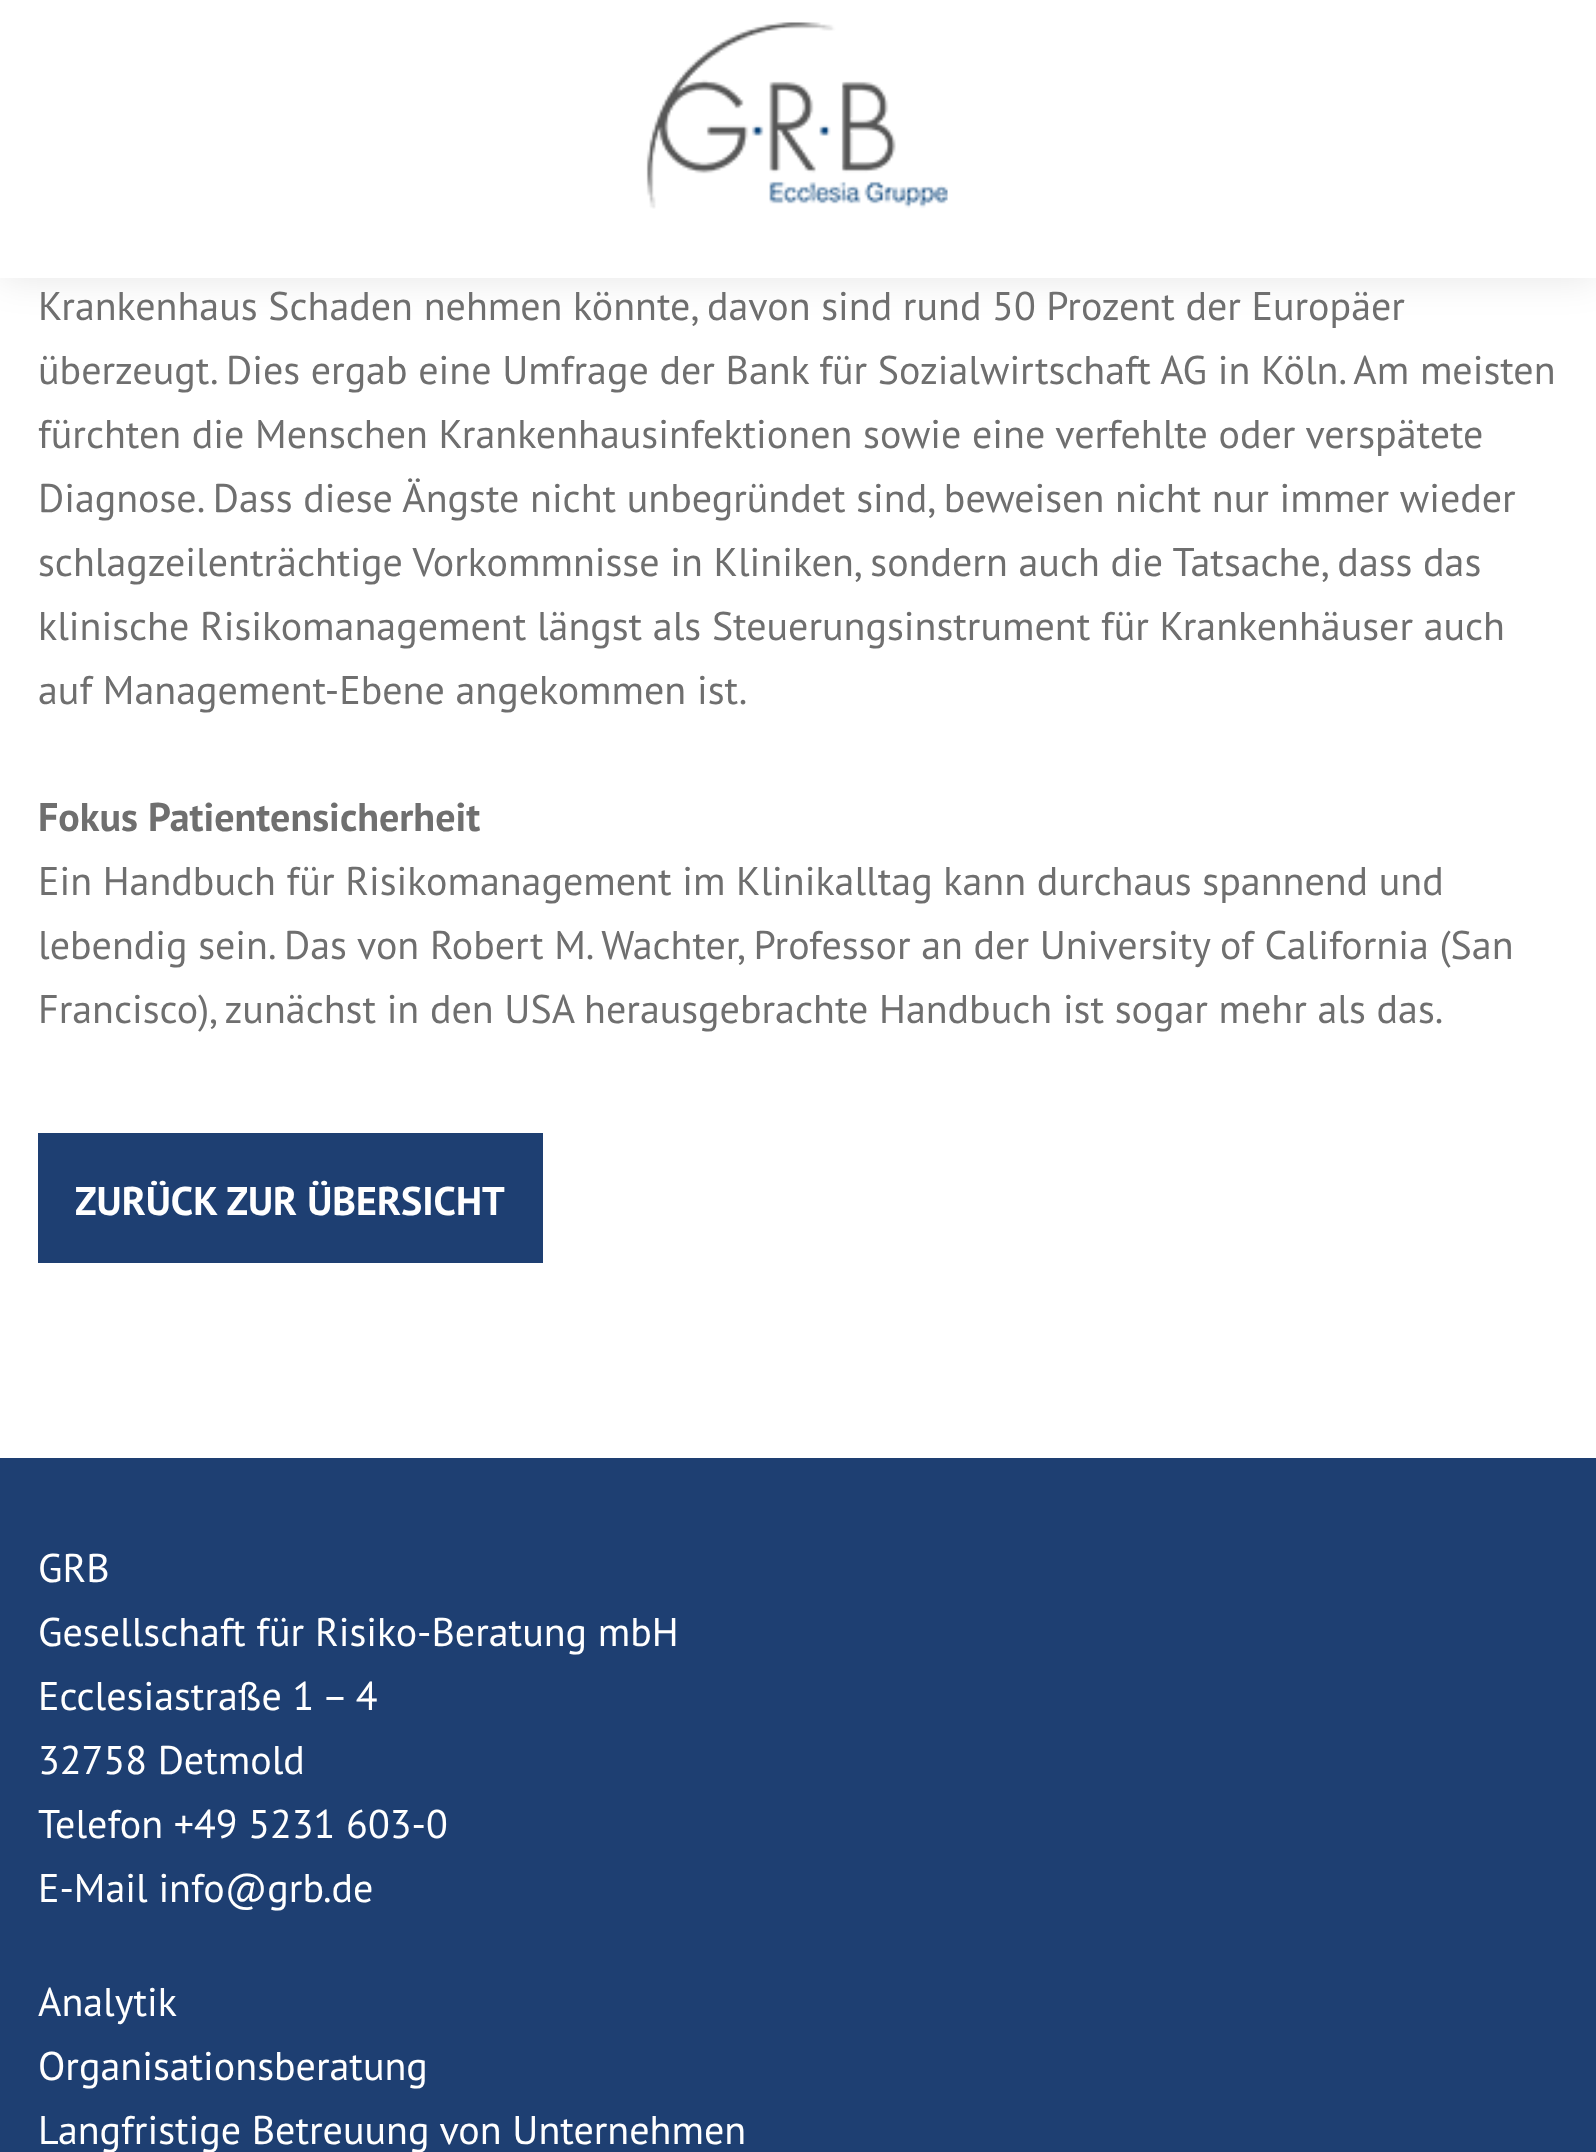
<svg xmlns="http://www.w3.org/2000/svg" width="1596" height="2152">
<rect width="100%" height="100%" fill="#fff"/>
<rect width="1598" height="278" fill="#0000001a" filter="blur(19px)"/>
<rect width="1596" height="278" fill="#fff"/>
<image x="646" y="22" width="302" height="187" href="media/1.png"/>
<text x="38" y="320" style="font-family:PT Sans;font-size:40px;fill:#6f6f6f">Krankenhaus Schaden nehmen könnte, davon sind rund 50 Prozent der Europäer</text>
<text x="38" y="384" style="font-family:PT Sans;font-size:40px;fill:#6f6f6f">überzeugt. Dies ergab eine Umfrage der Bank für Sozialwirtschaft AG in Köln. Am meisten</text>
<text x="38" y="448" style="font-family:PT Sans;font-size:40px;fill:#6f6f6f">fürchten die Menschen Krankenhausinfektionen sowie eine verfehlte oder verspätete</text>
<text x="38" y="512" style="font-family:PT Sans;font-size:40px;fill:#6f6f6f">Diagnose. Dass diese Ängste nicht unbegründet sind, beweisen nicht nur immer wieder</text>
<text x="38" y="576" style="font-family:PT Sans;font-size:40px;fill:#6f6f6f">schlagzeilenträchtige Vorkommnisse in Kliniken, sondern auch die Tatsache, dass das</text>
<text x="38" y="640" style="font-family:PT Sans;font-size:40px;fill:#6f6f6f">klinische Risikomanagement längst als Steuerungsinstrument für Krankenhäuser auch</text>
<text x="38" y="704" style="font-family:PT Sans;font-size:40px;fill:#6f6f6f">auf Management-Ebene angekommen ist.</text>
<text x="38" y="831" style="font-family:PT Sans;font-size:40px;font-weight:bold;fill:#6f6f6f">Fokus Patientensicherheit</text>
<text x="38" y="895" style="font-family:PT Sans;font-size:40px;fill:#6f6f6f">Ein Handbuch für Risikomanagement im Klinikalltag kann durchaus spannend und</text>
<text x="38" y="959" style="font-family:PT Sans;font-size:40px;fill:#6f6f6f">lebendig sein. Das von Robert M. Wachter, Professor an der University of California (San</text>
<text x="38" y="1023" style="font-family:PT Sans;font-size:40px;fill:#6f6f6f">Francisco), zunächst in den USA herausgebrachte Handbuch ist sogar mehr als das.</text>
<rect x="38" y="1133" width="505" height="130" fill="#1e3f72"/>
<text x="75" y="1215" style="font-family:PT Sans;font-size:40px;font-weight:bold;fill:#fff">ZURÜCK ZUR ÜBERSICHT</text>
<rect y="1458" width="1596" height="694" fill="#1e3f72"/>
<text x="38" y="1582" style="font-family:PT Sans;font-size:40px;fill:#fff">GRB</text>
<text x="38" y="1646" style="font-family:PT Sans;font-size:40px;fill:#fff">Gesellschaft für Risiko-Beratung mbH</text>
<text x="38" y="1710" style="font-family:PT Sans;font-size:40px;fill:#fff">Ecclesiastraße 1 – 4</text>
<text x="38" y="1774" style="font-family:PT Sans;font-size:40px;fill:#fff">32758 Detmold</text>
<text x="38" y="1838" style="font-family:PT Sans;font-size:40px;fill:#fff">Telefon +49 5231 603-0</text>
<text x="38" y="1902" style="font-family:PT Sans;font-size:40px;fill:#fff">E-Mail info@grb</text>
<text x="323" y="1902" style="font-family:PT Sans;font-size:40px;fill:#fff">.de</text>
<text x="38" y="2016" style="font-family:PT Sans;font-size:40px;fill:#fff">Analytik</text>
<text x="38" y="2080" style="font-family:PT Sans;font-size:40px;fill:#fff">Organisationsberatung</text>
<text x="38" y="2144" style="font-family:PT Sans;font-size:40px;fill:#fff">Langfristige Betreuung von Unternehmen</text>
</svg>
